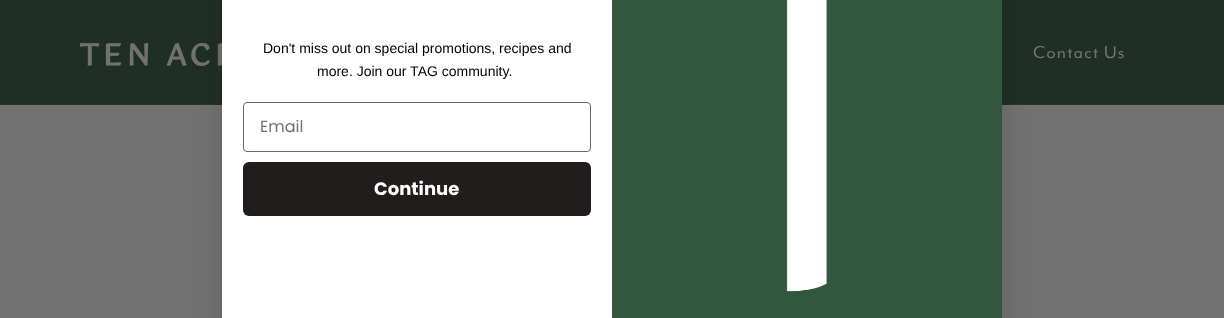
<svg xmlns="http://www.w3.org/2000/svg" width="1224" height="318">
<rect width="100%" height="100%" fill="#727272"/>
<rect width="1224" height="104" fill="#202f25"/>
<rect y="104" width="1224" height="1" fill="#26342b"/>
<image x="80" y="43" width="142" height="23" href="media/2.png"/>
<rect x="222" y="-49" width="780" height="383" rx="4" fill="#00000026" filter="blur(15px)"/>
<rect x="222" width="390" height="318" fill="#fff"/>
<text x="263" y="53" style="font-family:Liberation Sans;font-size:14px;fill:#000">Don't miss out on special promotions, recipes and</text>
<text x="317" y="76" style="font-family:Liberation Sans;font-size:14px;fill:#000">more. Join our TAG community.</text>
<rect x="243.5" y="102.5" width="347" height="49" rx="3.5" fill="none" stroke="#606a72"/>
<text x="260" y="132" style="font-family:Poppins;font-size:16px;fill:#727272">Email</text>
<rect x="243" y="162" width="348" height="54" rx="6" fill="#211d1c"/>
<text x="374" y="195" style="font-family:Poppins;font-size:18px;font-weight:bold;fill:#fff">Continue</text>
<image x="612" y="0" width="390" height="318" href="media/1.png"/>
<text x="1033" y="58" style="font-family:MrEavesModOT;font-size:20px;letter-spacing:1px;fill:#727272">Contact Us</text>
</svg>
